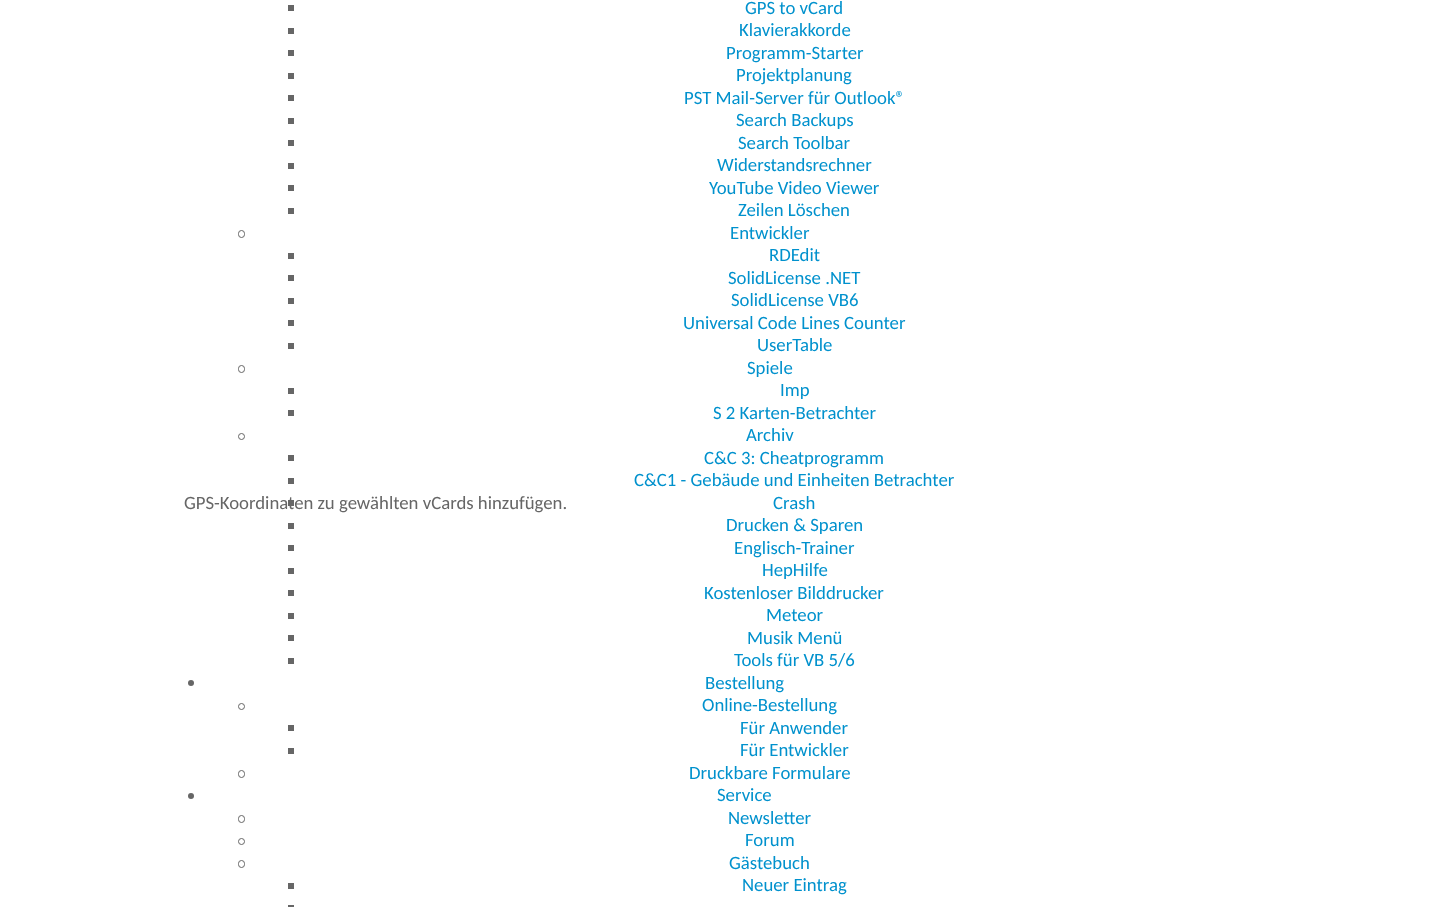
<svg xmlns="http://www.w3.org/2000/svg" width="1438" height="907">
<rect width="100%" height="100%" fill="#fff"/>
<text x="184" y="509" style="font-family:Carlito;font-size:18.75px;fill:#666">GPS-Koordinaten zu gewählten vCards hinzufügen.</text>
<rect x="288" y="5" width="6" height="6" fill="#666"/>
<text x="745" y="14" style="font-family:Carlito;font-size:18.75px;fill:#0091cd">GPS to vCard</text>
<rect x="288" y="28" width="6" height="6" fill="#666"/>
<text x="739" y="36" style="font-family:Carlito;font-size:18.75px;fill:#0091cd">Klavierakkorde</text>
<rect x="288" y="50" width="6" height="6" fill="#666"/>
<text x="726" y="59" style="font-family:Carlito;font-size:18.75px;fill:#0091cd">Programm-Starter</text>
<rect x="288" y="73" width="6" height="6" fill="#666"/>
<text x="736" y="81" style="font-family:Carlito;font-size:18.75px;fill:#0091cd">Projektplanung</text>
<rect x="288" y="95" width="6" height="6" fill="#666"/>
<text x="684" y="104" style="font-family:Carlito;font-size:18.75px;fill:#0091cd">PST Mail-Server für Outlook®</text>
<rect x="288" y="118" width="6" height="6" fill="#666"/>
<text x="736" y="126" style="font-family:Carlito;font-size:18.75px;fill:#0091cd">Search Backups</text>
<rect x="288" y="140" width="6" height="6" fill="#666"/>
<text x="738" y="149" style="font-family:Carlito;font-size:18.75px;fill:#0091cd">Search Toolbar</text>
<rect x="288" y="163" width="6" height="6" fill="#666"/>
<text x="717" y="171" style="font-family:Carlito;font-size:18.75px;fill:#0091cd">Widerstandsrechner</text>
<rect x="288" y="185" width="6" height="6" fill="#666"/>
<text x="709" y="194" style="font-family:Carlito;font-size:18.75px;fill:#0091cd">YouTube Video Viewer</text>
<rect x="288" y="208" width="6" height="6" fill="#666"/>
<text x="738" y="216" style="font-family:Carlito;font-size:18.75px;fill:#0091cd">Zeilen Löschen</text>
<rect x="238.5" y="230.5" width="6" height="7" rx="3" fill="none" stroke="#666"/>
<text x="730" y="239" style="font-family:Carlito;font-size:18.75px;fill:#0091cd">Entwickler</text>
<rect x="288" y="253" width="6" height="6" fill="#666"/>
<text x="769" y="261" style="font-family:Carlito;font-size:18.75px;fill:#0091cd">RDEdit</text>
<rect x="288" y="275" width="6" height="6" fill="#666"/>
<text x="728" y="284" style="font-family:Carlito;font-size:18.75px;fill:#0091cd">SolidLicense .NET</text>
<rect x="288" y="298" width="6" height="6" fill="#666"/>
<text x="731" y="306" style="font-family:Carlito;font-size:18.75px;fill:#0091cd">SolidLicense VB6</text>
<rect x="288" y="320" width="6" height="6" fill="#666"/>
<text x="683" y="329" style="font-family:Carlito;font-size:18.75px;fill:#0091cd">Universal Code Lines Counter</text>
<rect x="288" y="343" width="6" height="6" fill="#666"/>
<text x="757" y="351" style="font-family:Carlito;font-size:18.75px;fill:#0091cd">UserTable</text>
<rect x="238.5" y="365.5" width="6" height="7" rx="3" fill="none" stroke="#666"/>
<text x="747" y="374" style="font-family:Carlito;font-size:18.75px;fill:#0091cd">Spiele</text>
<rect x="288" y="388" width="6" height="6" fill="#666"/>
<text x="780" y="396" style="font-family:Carlito;font-size:18.75px;fill:#0091cd">Imp</text>
<rect x="288" y="410" width="6" height="6" fill="#666"/>
<text x="713" y="419" style="font-family:Carlito;font-size:18.75px;fill:#0091cd">S 2 Karten-Betrachter</text>
<circle cx="241.5" cy="436.5" r="3" fill="none" stroke="#666"/>
<text x="746" y="441" style="font-family:Carlito;font-size:18.75px;fill:#0091cd">Archiv</text>
<rect x="288" y="455" width="6" height="6" fill="#666"/>
<text x="704" y="464" style="font-family:Carlito;font-size:18.75px;fill:#0091cd">C&amp;C 3: Cheatprogramm</text>
<rect x="288" y="478" width="6" height="6" fill="#666"/>
<text x="634" y="486" style="font-family:Carlito;font-size:18.75px;fill:#0091cd">C&amp;C1 - Gebäude und Einheiten Betrachter</text>
<rect x="288" y="500" width="6" height="6" fill="#666"/>
<text x="773" y="509" style="font-family:Carlito;font-size:18.75px;fill:#0091cd">Crash</text>
<rect x="288" y="523" width="6" height="6" fill="#666"/>
<text x="726" y="531" style="font-family:Carlito;font-size:18.75px;fill:#0091cd">Drucken &amp; Sparen</text>
<rect x="288" y="545" width="6" height="6" fill="#666"/>
<text x="734" y="554" style="font-family:Carlito;font-size:18.75px;fill:#0091cd">Englisch-Trainer</text>
<rect x="288" y="568" width="6" height="6" fill="#666"/>
<text x="762" y="576" style="font-family:Carlito;font-size:18.75px;fill:#0091cd">HepHilfe</text>
<rect x="288" y="590" width="6" height="6" fill="#666"/>
<text x="704" y="599" style="font-family:Carlito;font-size:18.75px;fill:#0091cd">Kostenloser Bilddrucker</text>
<rect x="288" y="613" width="6" height="6" fill="#666"/>
<text x="766" y="621" style="font-family:Carlito;font-size:18.75px;fill:#0091cd">Meteor</text>
<rect x="288" y="635" width="6" height="6" fill="#666"/>
<text x="747" y="644" style="font-family:Carlito;font-size:18.75px;fill:#0091cd">Musik Menü</text>
<rect x="288" y="658" width="6" height="6" fill="#666"/>
<text x="734" y="666" style="font-family:Carlito;font-size:18.75px;fill:#0091cd">Tools für VB 5/6</text>
<circle cx="191" cy="683" r="3" fill="#666"/>
<text x="705" y="689" style="font-family:Carlito;font-size:18.75px;fill:#0091cd">Bestellung</text>
<circle cx="241.5" cy="706.5" r="3" fill="none" stroke="#666"/>
<text x="702" y="711" style="font-family:Carlito;font-size:18.75px;fill:#0091cd">Online-Bestellung</text>
<rect x="288" y="725" width="6" height="6" fill="#666"/>
<text x="740" y="734" style="font-family:Carlito;font-size:18.75px;fill:#0091cd">Für Anwender</text>
<rect x="288" y="748" width="6" height="6" fill="#666"/>
<text x="740" y="756" style="font-family:Carlito;font-size:18.75px;fill:#0091cd">Für Entwickler</text>
<rect x="238.5" y="770.5" width="6" height="7" rx="3" fill="none" stroke="#666"/>
<text x="689" y="779" style="font-family:Carlito;font-size:18.75px;fill:#0091cd">Druckbare Formulare</text>
<circle cx="191" cy="796" r="3" fill="#666"/>
<text x="717" y="801" style="font-family:Carlito;font-size:18.75px;fill:#0091cd">Service</text>
<rect x="238.5" y="815.5" width="6" height="7" rx="3" fill="none" stroke="#666"/>
<text x="728" y="824" style="font-family:Carlito;font-size:18.75px;fill:#0091cd">Newsletter</text>
<circle cx="241.5" cy="841.5" r="3" fill="none" stroke="#666"/>
<text x="745" y="846" style="font-family:Carlito;font-size:18.75px;fill:#0091cd">Forum</text>
<rect x="238.5" y="860.5" width="6" height="7" rx="3" fill="none" stroke="#666"/>
<text x="729" y="869" style="font-family:Carlito;font-size:18.75px;fill:#0091cd">Gästebuch</text>
<rect x="288" y="883" width="6" height="6" fill="#666"/>
<text x="742" y="891" style="font-family:Carlito;font-size:18.75px;fill:#0091cd">Neuer Eintrag</text>
<rect x="288" y="905" width="6" height="2" fill="#666"/>
</svg>
